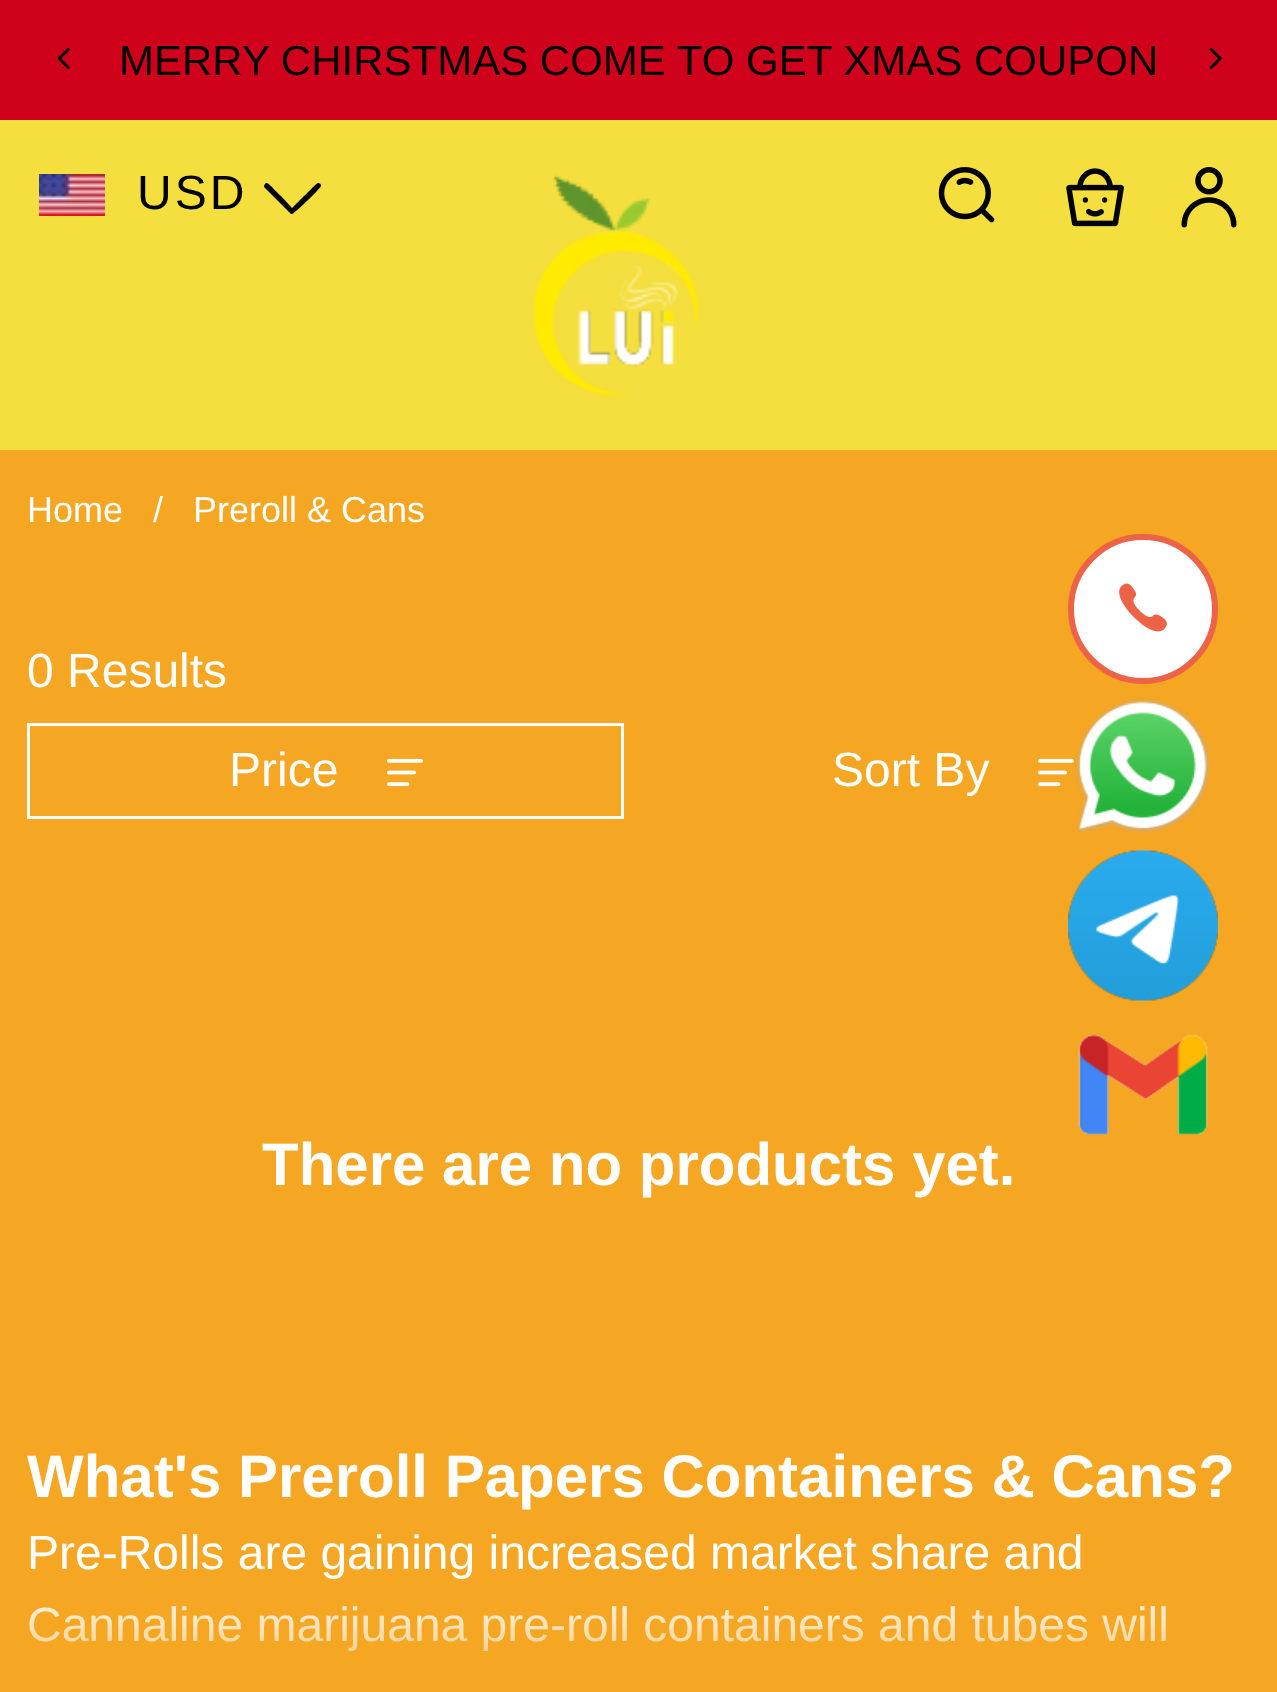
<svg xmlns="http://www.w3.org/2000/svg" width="1277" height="1692">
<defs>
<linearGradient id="g1" gradientUnits="userSpaceOnUse" x1="639" y1="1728" x2="639" y2="1578"><stop offset="0" stop-color="#f5a623"/><stop offset="1" stop-color="#f5a623" stop-opacity="0"/></linearGradient>
</defs>
<rect width="100%" height="100%" fill="#f5a623"/>
<rect y="120" width="1277" height="330" fill="#f4df3f"/>
<rect width="1277" height="120" fill="#d0021b"/>
<image x="57" y="48" width="13" height="21" href="media/1.png"/>
<text x="119" y="75" style="font-family:Liberation Sans;font-size:42px;fill:#000">MERRY CHIRSTMAS COME TO GET XMAS COUPON</text>
<image x="1209" y="48" width="13" height="21" href="media/2.png"/>
<image x="39" y="174" width="66" height="42" href="media/3.png"/>
<text x="137" y="209" style="font-family:Liberation Sans;font-size:48px;letter-spacing:3px;fill:#000">USD</text>
<path d="M292 214h-1l-27-27c0-2 1-4 3-4c3 1 11 11 14 13l11 12l12-12c3-2 11-12 14-13c2 0 3 1 3 3c0 2-27 28-29 28z" fill="#000"/>
<image x="533" y="174" width="167" height="222" href="media/4.png"/>
<image x="938" y="167" width="57" height="56" href="media/5.png"/>
<image x="1066" y="168" width="58" height="59" href="media/6.png"/>
<image x="1181" y="167" width="56" height="61" href="media/7.png"/>
<text x="27" y="522" style="font-family:Liberation Sans;font-size:36px;fill:#fff">Home</text>
<text x="153" y="522" style="font-family:Liberation Sans;font-size:36px;fill:#fff">/</text>
<text x="193" y="522" style="font-family:Liberation Sans;font-size:36px;fill:#fff">Preroll &amp; Cans</text>
<text x="27" y="687" style="font-family:Liberation Sans;font-size:48px;fill:#fff">0 Results</text>
<rect x="28.5" y="724.5" width="594" height="93" fill="none" stroke="#fff" stroke-width="3"/>
<text x="229" y="786" style="font-family:Liberation Sans;font-size:48px;fill:#fff">Price</text>
<image x="387" y="758" width="36" height="29" href="media/8.png"/>
<text x="832" y="786" style="font-family:Liberation Sans;font-size:48px;fill:#fff">Sort By</text>
<image x="1038" y="758" width="36" height="29" href="media/8.png"/>
<text x="262" y="1185" style="font-family:Liberation Sans;font-size:60px;font-weight:bold;fill:#fff">There are no products yet.</text>
<text x="27" y="1497" style="font-family:Liberation Sans;font-size:60px;font-weight:bold;fill:#fff">What's Preroll Papers Containers &amp; Cans?</text>
<text x="27" y="1569" style="font-family:Liberation Sans;font-size:48px;fill:#fff">Pre-Rolls are gaining increased market share and</text>
<text x="27" y="1641" style="font-family:Liberation Sans;font-size:48px;fill:#fff">Cannaline marijuana pre-roll containers and tubes will</text>
<rect x="29" y="1606" width="1137" height="45" fill="url(#g1)"/>
<circle cx="1143" cy="609" r="72" fill="#fff" stroke="#ed6347" stroke-width="6"/>
<image x="1119" y="583" width="48" height="49" href="media/9.png"/>
<image x="1075" y="697" width="137" height="137" href="media/10.png"/>
<image x="1068" y="850" width="150" height="151" href="media/11.png"/>
<image x="1078" y="1034" width="130" height="102" href="media/12.png"/>
</svg>
